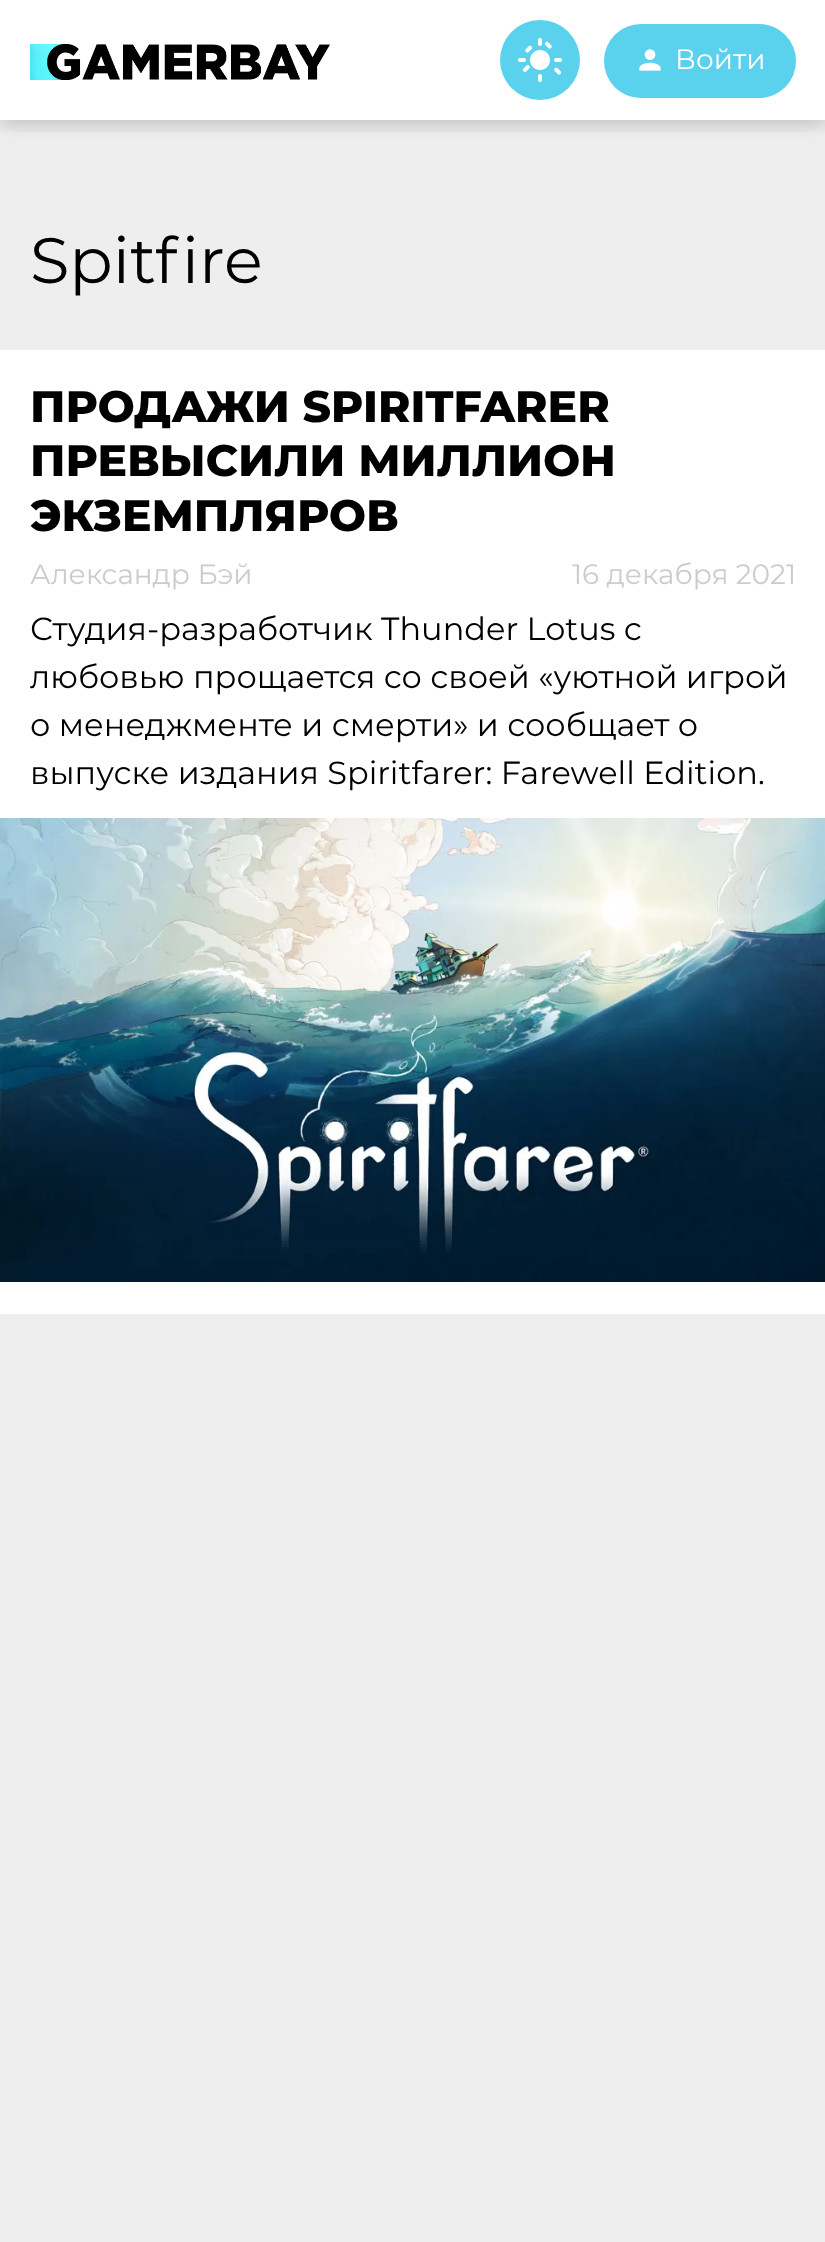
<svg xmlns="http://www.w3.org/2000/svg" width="825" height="2242">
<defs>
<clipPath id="clip1"><rect x="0" y="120" width="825" height="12"/></clipPath>
</defs>
<rect width="100%" height="100%" fill="#eee"/>
<rect y="4" width="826" height="120" fill="#0000001a" filter="blur(10px)"/>
<rect width="825" height="120" fill="#fff"/>
<g clip-path="url(#clip1)">
<rect y="4" width="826" height="120" fill="#0000001a" filter="blur(10px)"/>
</g>
<image x="30" y="44" width="300" height="36" href="media/1.png"/>
<circle cx="540" cy="60" r="40" fill="#5ad2ed"/>
<image x="518" y="38" width="44" height="44" href="media/2.png"/>
<rect x="604" y="24" width="192" height="74" rx="37" fill="#5ad2ed"/>
<image x="639" y="49" width="22" height="22" href="media/3.png"/>
<text x="675" y="69" style="font-family:Montserrat;font-size:28px;fill:#fff">Войти</text>
<text x="30" y="283" style="font-family:Montserrat;font-size:64px;fill:#000">Spitfire</text>
<rect y="350" width="825" height="964" fill="#fff"/>
<text x="30" y="422" style="font-family:Montserrat;font-size:44px;font-weight:800;fill:#000">ПРОДАЖИ SPIRITFARER</text>
<text x="30" y="476" style="font-family:Montserrat;font-size:44px;font-weight:800;fill:#000">ПРЕВЫСИЛИ МИЛЛИОН</text>
<text x="30" y="531" style="font-family:Montserrat;font-size:44px;font-weight:800;fill:#000">ЭКЗЕМПЛЯРОВ</text>
<text x="30" y="584" style="font-family:Montserrat;font-size:28px;fill:#cdcccc">Александр Бэй</text>
<text x="572" y="584" style="font-family:Montserrat;font-size:28px;fill:#cdcccc">16 декабря 2021</text>
<text x="30" y="640" style="font-family:Montserrat;font-size:32px;fill:#000">Студия-разработчик Thunder Lotus с</text>
<text x="30" y="688" style="font-family:Montserrat;font-size:32px;fill:#000">любовью прощается со своей «уютной игрой</text>
<text x="30" y="736" style="font-family:Montserrat;font-size:32px;fill:#000">о менеджменте и смерти» и сообщает о</text>
<text x="30" y="784" style="font-family:Montserrat;font-size:32px;fill:#000">выпуске издания Spiritfarer: Farewell Edition.</text>
<image x="0" y="818" width="825" height="464" href="media/4.png"/>
</svg>
